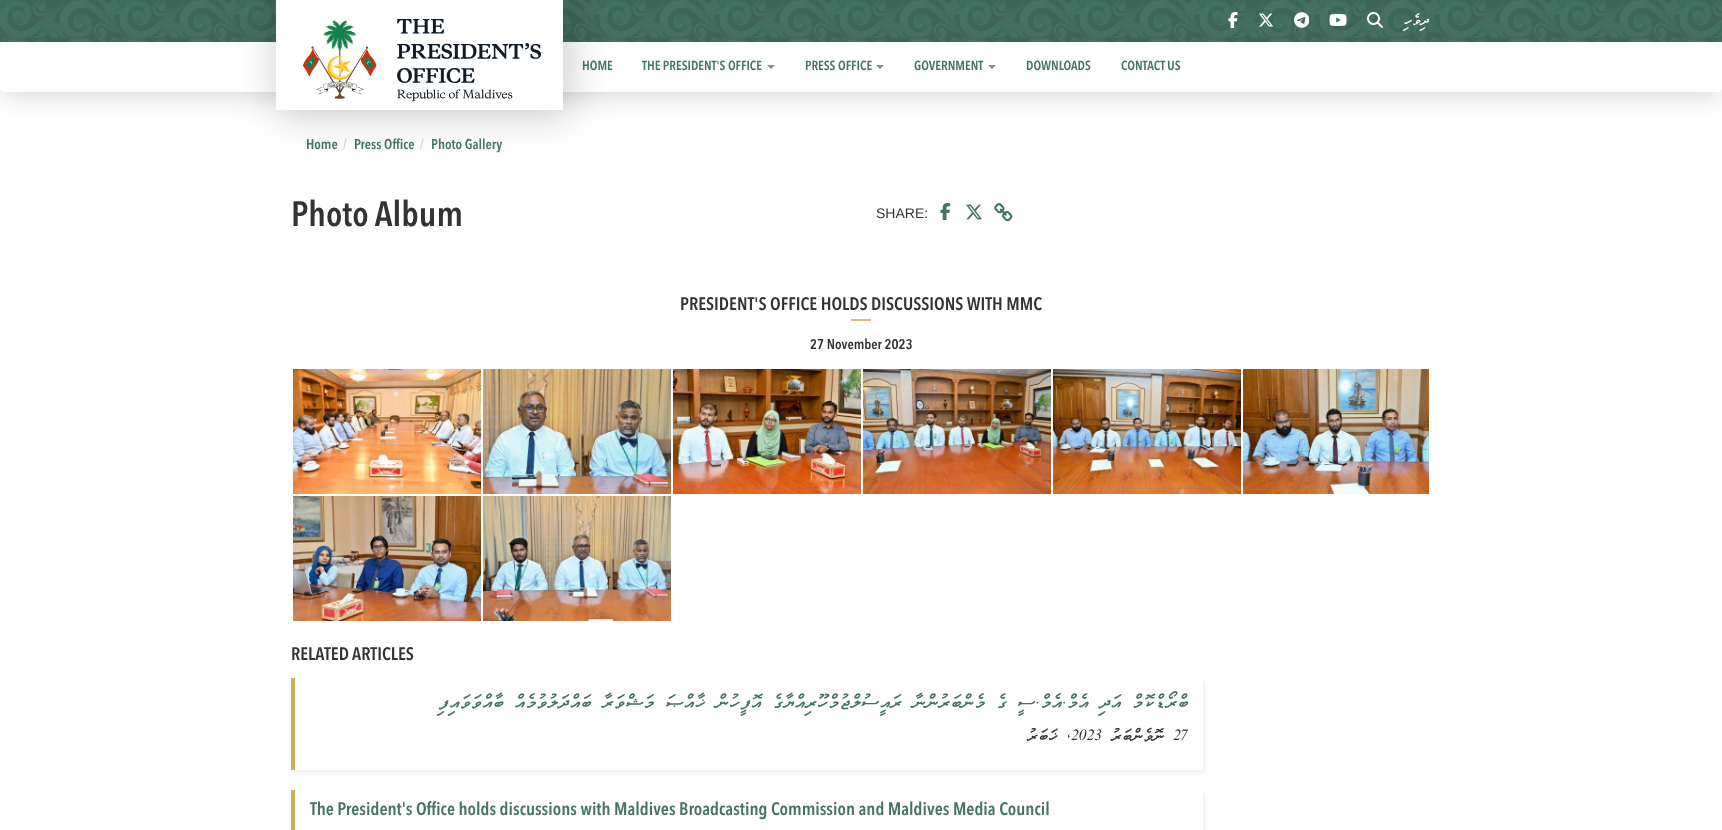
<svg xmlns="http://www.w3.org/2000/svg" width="1722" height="830">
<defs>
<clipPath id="clip1"><path d="M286 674h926v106h-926zm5 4h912v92h-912z" clip-rule="evenodd"/></clipPath>
<clipPath id="clip2"><path d="M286 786h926v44h-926zm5 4h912v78h-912z" clip-rule="evenodd"/></clipPath>
</defs>
<rect width="100%" height="100%" fill="#fff"/>
<rect y="42" width="1722" height="50" rx="4" fill="#00000033" filter="blur(15px)"/>
<image x="0" y="0" width="1722" height="42" href="media/1.png"/>
<rect y="42" width="1722" height="50" rx="4" fill="#fff"/>
<rect x="278" y="1" width="291" height="114" fill="#00000033" filter="blur(20.5px)"/>
<rect x="276" width="287" height="110" fill="#fff"/>
<image x="303" y="19" width="238" height="82" href="media/2.png"/>
<image x="1228" y="12" width="10" height="16" href="media/3.png"/>
<image x="1259" y="13" width="15" height="14" href="media/4.png"/>
<image x="1294" y="12" width="15" height="16" href="media/5.png"/>
<image x="1329" y="14" width="18" height="12" href="media/6.png"/>
<image x="1367" y="12" width="16" height="16" href="media/7.png"/>
<text x="1429" y="24" style="font-family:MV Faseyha;font-size:14px;font-style:italic;direction:rtl;fill:#fff">ދިވެހި</text>
<text x="582" y="70" style="font-family:Avenir Next;font-size:13px;font-weight:600;fill:#467362">HOME</text>
<text x="642" y="70" style="font-family:Avenir Next;font-size:13px;font-weight:600;fill:#467362">THE PRESIDENT'S OFFICE</text>
<path d="M767 65h8l-4 4z" fill="#749689"/>
<text x="805" y="70" style="font-family:Avenir Next;font-size:13px;font-weight:600;fill:#467362">PRESS OFFICE</text>
<path d="M876 65h8l-4 4z" fill="#749689"/>
<text x="914" y="70" style="font-family:Avenir Next;font-size:13px;font-weight:600;fill:#467362">GOVERNMENT</text>
<path d="M988 65h8l-4 4z" fill="#749689"/>
<text x="1026" y="70" style="font-family:Avenir Next;font-size:13px;font-weight:600;fill:#467362">DOWNLOADS</text>
<text x="1121" y="70" style="font-family:Avenir Next;font-size:13px;font-weight:600;fill:#467362">CONTACT US</text>
<text x="306" y="149" style="font-family:Avenir Next;font-size:14px;font-weight:600;fill:#467362">Home</text>
<text x="343" y="149" style="font-family:Avenir Next;font-size:14px;font-weight:600;fill:#ccc">/</text>
<text x="354" y="149" style="font-family:Avenir Next;font-size:14px;font-weight:600;fill:#467362">Press Office</text>
<text x="420" y="149" style="font-family:Avenir Next;font-size:14px;font-weight:600;fill:#ccc">/</text>
<text x="431" y="149" style="font-family:Avenir Next;font-size:14px;font-weight:600;fill:#467362">Photo Gallery</text>
<text x="291" y="226" style="font-family:Avenir Next;font-size:35px;font-weight:600;fill:#333">Photo Album</text>
<text x="876" y="218" style="font-family:Liberation Sans;font-size:14px;fill:#333">SHARE:</text>
<image x="940" y="203" width="11" height="17" href="media/8.png"/>
<image x="966" y="204" width="16" height="16" href="media/9.png"/>
<image x="994" y="203" width="19" height="19" href="media/10.png"/>
<text x="680" y="310" style="font-family:Avenir Next;font-size:18px;font-weight:600;fill:#333">PRESIDENT'S OFFICE HOLDS DISCUSSIONS WITH MMC</text>
<rect x="851" y="319" width="20" height="2" fill="#dabc77"/>
<text x="810" y="349" style="font-family:Avenir Next;font-size:14px;font-weight:600;fill:#333">27 November 2023</text>
<image x="293" y="369" width="188" height="125" href="media/11.png"/>
<image x="483" y="369" width="188" height="125" href="media/12.png"/>
<image x="673" y="369" width="188" height="125" href="media/13.png"/>
<image x="863" y="369" width="188" height="125" href="media/14.png"/>
<image x="1053" y="369" width="188" height="125" href="media/15.png"/>
<image x="1243" y="369" width="186" height="125" href="media/16.png"/>
<image x="293" y="496" width="188" height="125" href="media/17.png"/>
<image x="483" y="496" width="188" height="125" href="media/18.png"/>
<text x="291" y="660" style="font-family:Avenir Next;font-size:18px;font-weight:600;fill:#333">RELATED ARTICLES</text>
<g clip-path="url(#clip1)">
<rect x="293" y="681" width="912" height="92" fill="#eee" filter="blur(2px)"/>
</g>
<rect x="291" y="678" width="4" height="92" fill="#cfae5f"/>
<text x="1188" y="707" style="font-family:MV Faseyha;font-size:18px;font-style:italic;direction:rtl;fill:#467362">ބްރޯޑްކޮމް އަދި އެމް.އެމް.ސީ ގެ މެންބަރުންނާ ރައީސުލްޖުމްހޫރިއްޔާގެ އޮފީހުން ޚާއްޞަ މަޝްވަރާ ބައްދަލުވުމެއް ބާއްވަވައިފި</text>
<text x="1071" y="740" style="font-family:MV Faseyha;font-size:16px;font-style:italic;direction:rtl;fill:#333">, ޚަބަރު</text>
<text x="1071" y="740" style="font-family:MV Faseyha;font-size:16px;font-style:italic;fill:#333">2023</text>
<text x="1164" y="740" style="font-family:MV Faseyha;font-size:16px;font-style:italic;direction:rtl;fill:#333">ނޮވެންބަރު</text>
<text x="1173" y="740" style="font-family:MV Faseyha;font-size:16px;font-style:italic;fill:#333">27</text>
<g clip-path="url(#clip2)">
<rect x="293" y="793" width="912" height="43" fill="#eee" filter="blur(2px)"/>
</g>
<rect x="291" y="790" width="4" height="40" fill="#cfae5f"/>
<text x="310" y="815" style="font-family:Avenir Next;font-size:18px;font-weight:600;fill:#467362">The President's Office holds discussions with Maldives Broadcasting Commission and Maldives Media Council</text>
</svg>
